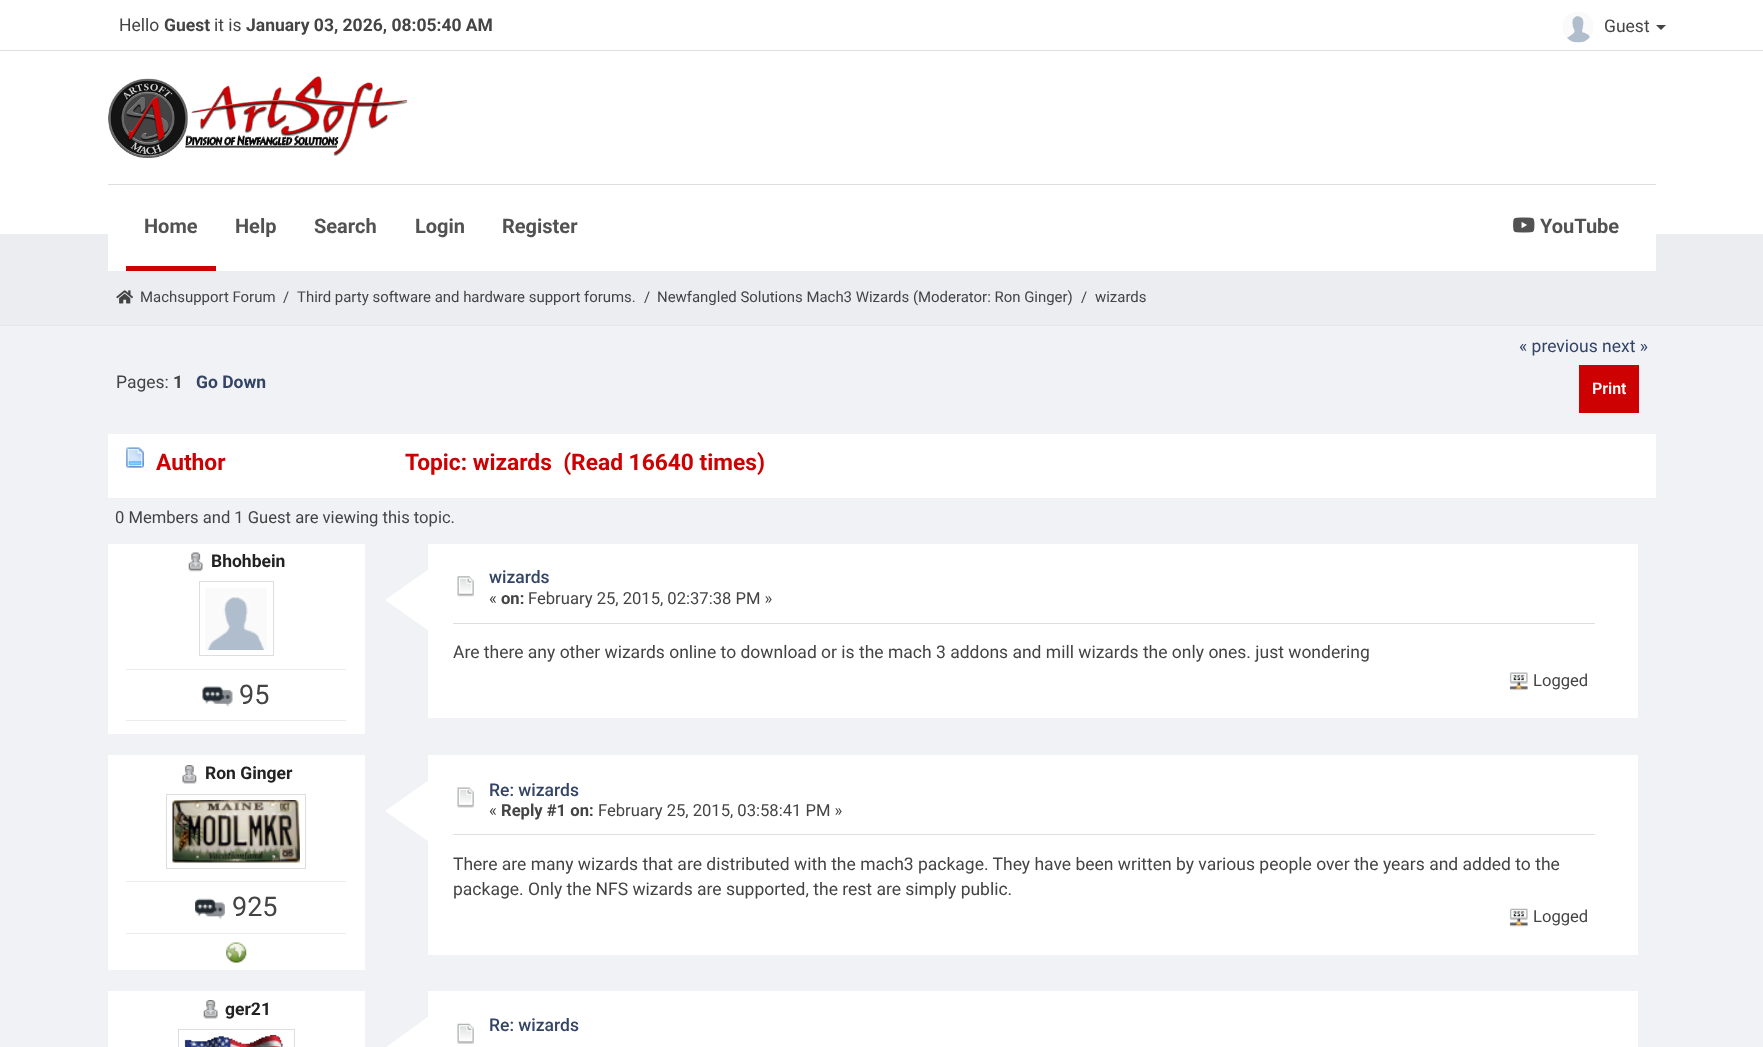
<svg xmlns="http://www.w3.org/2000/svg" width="1763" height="1047">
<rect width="100%" height="100%" fill="#f0f2f6"/>
<rect width="1763" height="50" fill="#fff"/>
<rect y="50" width="1763" height="1" fill="#dedede"/>
<text x="119" y="31" style="font-family:Roboto;font-size:17.5px;fill:#444">Hello</text>
<text x="164" y="31" style="font-family:Roboto;font-size:17.5px;font-weight:bold;fill:#444">Guest</text>
<text x="214" y="31" style="font-family:Roboto;font-size:17.5px;fill:#444">it is</text>
<text x="246" y="31" style="font-family:Roboto;font-size:17.5px;font-weight:bold;fill:#444">January 03, 2026, 08:05:40 AM</text>
<image x="1563" y="12" width="30" height="31" href="media/1.png"/>
<text x="1604" y="32" style="font-family:Roboto;font-size:17.5px;fill:#444">Guest</text>
<path d="M1656 25h10l-5 5z" fill="#444"/>
<rect y="51" width="1763" height="183" fill="#fff"/>
<image x="108" y="76" width="300" height="82" href="media/2.png"/>
<rect y="234" width="1763" height="91" fill="#ebedf0"/>
<rect x="108" y="234" width="1548" height="37" fill="#fff"/>
<rect x="108" y="184" width="1548" height="1" fill="#dedede"/>
<rect x="126" y="266" width="90" height="5" fill="#cd0002"/>
<text x="144" y="233" style="font-family:Roboto;font-size:20px;font-weight:bold;fill:#525252">Home</text>
<text x="235" y="233" style="font-family:Roboto;font-size:20px;font-weight:bold;fill:#525252">Help</text>
<text x="314" y="233" style="font-family:Roboto;font-size:20px;font-weight:bold;fill:#525252">Search</text>
<text x="415" y="233" style="font-family:Roboto;font-size:20px;font-weight:bold;fill:#525252">Login</text>
<text x="502" y="233" style="font-family:Roboto;font-size:20px;font-weight:bold;fill:#525252">Register</text>
<image x="1513" y="217" width="22" height="16" href="media/3.png"/>
<text x="1540" y="233" style="font-family:Roboto;font-size:20px;font-weight:bold;fill:#525252">YouTube</text>
<rect y="325" width="1763" height="1" fill="#e4e6e9"/>
<image x="116" y="290" width="17" height="14" href="media/4.png"/>
<text x="140" y="302" style="font-family:Roboto;font-size:14.95px;fill:#444">Machsupport Forum</text>
<text x="283" y="302" style="font-family:Roboto;font-size:14.95px;fill:#444">/</text>
<text x="297" y="302" style="font-family:Roboto;font-size:14.95px;fill:#444">Third party software and hardware support forums.</text>
<text x="644" y="302" style="font-family:Roboto;font-size:14.95px;fill:#444">/</text>
<text x="657" y="302" style="font-family:Roboto;font-size:14.95px;fill:#444">Newfangled Solutions Mach3 Wizards (Moderator: Ron Ginger)</text>
<text x="1081" y="302" style="font-family:Roboto;font-size:14.95px;fill:#444">/</text>
<text x="1095" y="302" style="font-family:Roboto;font-size:14.95px;fill:#444">wizards</text>
<text x="1519" y="352" style="font-family:Roboto;font-size:17.5px;fill:#346">« previous next »</text>
<text x="116" y="388" style="font-family:Roboto;font-size:17.5px;fill:#444">Pages:</text>
<text x="173" y="388" style="font-family:Roboto;font-size:17.5px;font-weight:bold;fill:#444">1</text>
<text x="196" y="388" style="font-family:Roboto;font-size:17.5px;font-weight:bold;fill:#346">Go Down</text>
<rect x="1579" y="365" width="60" height="48" fill="#cd0002"/>
<text x="1592" y="394" style="font-family:Roboto;font-size:16px;font-weight:600;fill:#fff">Print</text>
<rect x="108" y="434" width="1548" height="64" fill="#fff"/>
<rect x="108" y="498" width="1548" height="1" fill="#efefef"/>
<image x="126" y="447" width="18" height="21" href="media/5.png"/>
<text x="156" y="470" style="font-family:Roboto;font-size:22.75px;font-weight:bold;fill:#cd0002">Author</text>
<text x="405" y="470" style="font-family:Roboto;font-size:22.75px;font-weight:bold;fill:#cd0002" xml:space="preserve">Topic: wizards  (Read 16640 times)</text>
<text x="115" y="523" style="font-family:Roboto;font-size:16.6px;fill:#444">0 Members and 1 Guest are viewing this topic.</text>
<rect x="108" y="544" width="257" height="190" fill="#fff"/>
<image x="188" y="552" width="15" height="20" href="media/6.png"/>
<text x="211" y="567" style="font-family:Roboto;font-size:17.5px;font-weight:bold;fill:#222">Bhohbein</text>
<rect x="199.5" y="581.5" width="74" height="74" fill="none" stroke="#ddd"/>
<image x="205" y="588" width="62" height="62" href="media/7.png"/>
<rect x="126" y="669" width="220" height="1" fill="#ebebeb"/>
<rect x="126" y="720" width="220" height="1" fill="#ebebeb"/>
<image x="202" y="686" width="31" height="21" href="media/8.png"/>
<text x="239" y="704" style="font-family:Roboto;font-size:27px;fill:#444">95</text>
<rect x="428" y="544" width="1210" height="174" fill="#fff"/>
<path d="M429 569v62l-44-31z" fill="#fff"/>
<image x="457" y="576" width="17" height="21" href="media/9.png"/>
<text x="489" y="583" style="font-family:Roboto;font-size:17.5px;font-weight:500;fill:#346">wizards</text>
<text x="489" y="604" style="font-family:Roboto;font-size:16.6px;fill:#444">«</text>
<text x="501" y="604" style="font-family:Roboto;font-size:16.6px;font-weight:bold;fill:#444">on:</text>
<text x="528" y="604" style="font-family:Roboto;font-size:16.6px;fill:#444">February 25, 2015, 02:37:38 PM »</text>
<rect x="453" y="623" width="1142" height="1" fill="#dedede"/>
<text x="453" y="658" style="font-family:Roboto;font-size:17.5px;fill:#444">Are there any other wizards online to download or is the mach 3 addons and mill wizards the only ones. just wondering</text>
<image x="1509" y="672" width="19" height="19" href="media/10.png"/>
<text x="1533" y="686" style="font-family:Roboto;font-size:16.6px;fill:#444">Logged</text>
<rect x="108" y="755" width="257" height="215" fill="#fff"/>
<image x="182" y="765" width="15" height="19" href="media/11.png"/>
<text x="205" y="779" style="font-family:Roboto;font-size:17.5px;font-weight:bold;fill:#222">Ron Ginger</text>
<rect x="166.5" y="794.5" width="139" height="74" fill="none" stroke="#ddd"/>
<image x="172" y="800" width="128" height="63" href="media/12.png"/>
<rect x="126" y="881" width="220" height="1" fill="#ebebeb"/>
<rect x="126" y="933" width="220" height="1" fill="#ebebeb"/>
<image x="195" y="898" width="30" height="22" href="media/13.png"/>
<text x="232" y="916" style="font-family:Roboto;font-size:27px;fill:#444">925</text>
<image x="226" y="942" width="21" height="21" href="media/14.png"/>
<rect x="428" y="755" width="1210" height="200" fill="#fff"/>
<path d="M429 780v62l-44-31z" fill="#fff"/>
<image x="457" y="787" width="17" height="21" href="media/15.png"/>
<text x="489" y="796" style="font-family:Roboto;font-size:17.5px;font-weight:500;fill:#346">Re: wizards</text>
<text x="489" y="816" style="font-family:Roboto;font-size:16.6px;fill:#444">«</text>
<text x="501" y="816" style="font-family:Roboto;font-size:16.6px;font-weight:bold;fill:#444">Reply #1 on:</text>
<text x="598" y="816" style="font-family:Roboto;font-size:16.6px;fill:#444">February 25, 2015, 03:58:41 PM »</text>
<rect x="453" y="834" width="1142" height="1" fill="#dedede"/>
<text x="453" y="870" style="font-family:Roboto;font-size:17.5px;fill:#444">There are many wizards that are distributed with the mach3 package. They have been written by various people over the years and added to the</text>
<text x="453" y="895" style="font-family:Roboto;font-size:17.5px;fill:#444">package. Only the NFS wizards are supported, the rest are simply public.</text>
<image x="1509" y="908" width="19" height="19" href="media/16.png"/>
<text x="1533" y="922" style="font-family:Roboto;font-size:16.6px;fill:#444">Logged</text>
<rect x="108" y="991" width="257" height="56" fill="#fff"/>
<image x="203" y="1000" width="15" height="19" href="media/17.png"/>
<text x="225" y="1015" style="font-family:Roboto;font-size:17.5px;font-weight:bold;fill:#222">ger21</text>
<rect x="178.5" y="1029.5" width="116" height="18" fill="none" stroke="#ddd"/>
<image x="184" y="1035" width="99" height="12" href="media/18.png"/>
<rect x="428" y="991" width="1210" height="56" fill="#fff"/>
<path d="M429 1016v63l-44-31z" fill="#fff"/>
<image x="457" y="1023" width="17" height="21" href="media/19.png"/>
<text x="489" y="1031" style="font-family:Roboto;font-size:17.5px;font-weight:500;fill:#346">Re: wizards</text>
</svg>
